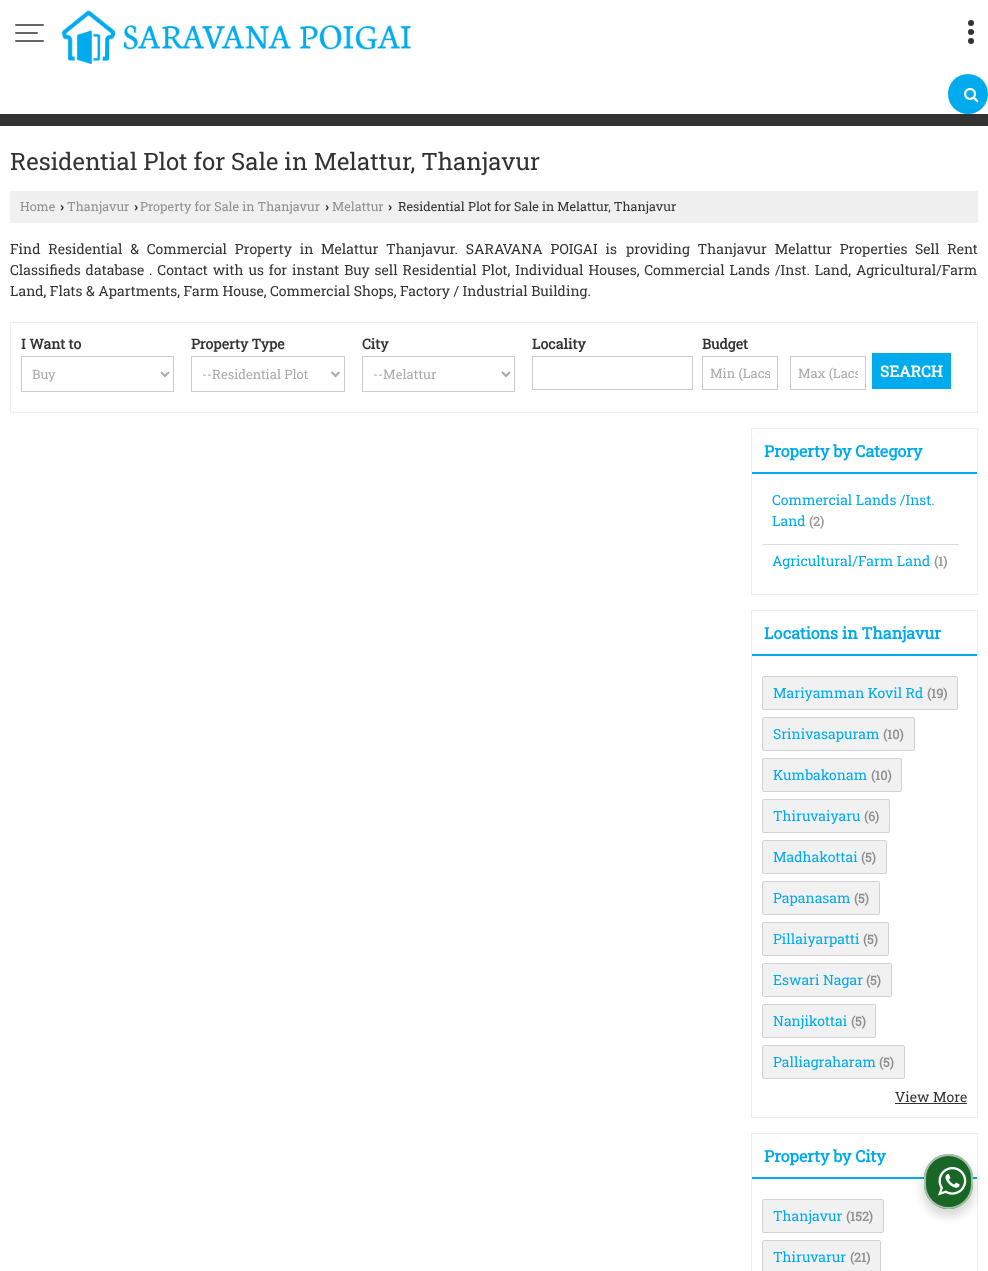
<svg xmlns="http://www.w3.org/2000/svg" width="988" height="1271">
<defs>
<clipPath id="clip1"><rect x="710" y="364" width="60" height="18"/></clipPath>
<clipPath id="clip2"><rect x="798" y="364" width="60" height="18"/></clipPath>
</defs>
<rect width="100%" height="100%" fill="#fff"/>
<image x="61" y="10" width="351" height="54" href="media/1.png"/>
<circle cx="971" cy="32" r="3" fill="#333"/>
<circle cx="971" cy="23" r="3" fill="#333"/>
<circle cx="971" cy="41" r="3" fill="#333"/>
<circle cx="968" cy="94" r="20" fill="#00abed"/>
<image x="964" y="87" width="15" height="16" href="media/2.png"/>
<rect y="114" width="988" height="12" fill="#333"/>
<rect x="15" y="24" width="29" height="2" rx="1" fill="#666"/>
<rect x="15" y="32" width="23" height="2" rx="1" fill="#666"/>
<rect x="15" y="40" width="29" height="2" rx="1" fill="#666"/>
<text x="10" y="170" style="font-family:Roboto Slab;font-size:24px;fill:#333">Residential Plot for Sale in Melattur, Thanjavur</text>
<rect x="10" y="191" width="968" height="32" fill="#f0f0f0"/>
<text x="20" y="211" style="font-family:Roboto Slab;font-size:12.6px;fill:#909090">Home</text>
<text x="60" y="211" style="font-family:Liberation Sans;font-size:12.6px;font-weight:bold;fill:#333">›</text>
<text x="67" y="211" style="font-family:Roboto Slab;font-size:12.6px;fill:#909090">Thanjavur</text>
<text x="134" y="211" style="font-family:Liberation Sans;font-size:12.6px;font-weight:bold;fill:#333">›</text>
<text x="140" y="211" style="font-family:Roboto Slab;font-size:12.6px;fill:#909090">Property for Sale in Thanjavur</text>
<text x="325" y="211" style="font-family:Liberation Sans;font-size:12.6px;font-weight:bold;fill:#333">›</text>
<text x="332" y="211" style="font-family:Roboto Slab;font-size:12.6px;fill:#909090">Melattur</text>
<text x="388" y="211" style="font-family:Liberation Sans;font-size:12.6px;font-weight:bold;fill:#333">›</text>
<text x="398" y="211" style="font-family:Roboto Slab;font-size:12.6px;fill:#333">Residential Plot for Sale in Melattur, Thanjavur</text>
<text x="10" y="254" word-spacing="4.25" style="font-family:Roboto Slab;font-size:14px;fill:#333">Find Residential &amp; Commercial Property in Melattur Thanjavur. SARAVANA POIGAI is</text>
<text x="626" y="254" word-spacing="4.25" style="font-family:Roboto Slab;font-size:14px;fill:#333">providing Thanjavur Melattur Properties Sell Rent</text>
<text x="10" y="275" word-spacing="1.4" style="font-family:Roboto Slab;font-size:14px;fill:#333">Classifieds database . Contact with us for instant Buy sell Residential Plot, Individual Houses, Commercial Lands /Inst. Land, Agricultural/Farm</text>
<text x="10" y="296" style="font-family:Roboto Slab;font-size:14px;fill:#333">Land, Flats &amp; Apartments, Farm House, Commercial Shops, Factory / Industrial Building.</text>
<rect x="10.5" y="322.5" width="967" height="90" fill="none" stroke="#ededed"/>
<text x="21" y="349" style="font-family:Roboto Slab;font-size:14px;font-weight:bold;fill:#333">I Want to</text>
<rect x="21.5" y="356.5" width="152" height="35" fill="none" stroke="#ccc"/>
<path d="M161 372l4 4l4-4" fill="none" stroke="#aaa" stroke-width="2"/>
<text x="32" y="379" style="font-family:Roboto Slab;font-size:13px;fill:#aaa">Buy</text>
<text x="191" y="349" style="font-family:Roboto Slab;font-size:14px;font-weight:bold;fill:#333">Property Type</text>
<rect x="191.5" y="356.5" width="153" height="35" fill="none" stroke="#ccc"/>
<path d="M331.5 372l4 4l4-4" fill="none" stroke="#aaa" stroke-width="2"/>
<text x="202" y="379" style="font-family:Roboto Slab;font-size:13px;fill:#aaa">--Residential Plot</text>
<text x="362" y="349" style="font-family:Roboto Slab;font-size:14px;font-weight:bold;fill:#333">City</text>
<rect x="362.5" y="356.5" width="152" height="35" fill="none" stroke="#ccc"/>
<path d="M502 372l4 4l4-4" fill="none" stroke="#aaa" stroke-width="2"/>
<text x="373" y="379" style="font-family:Roboto Slab;font-size:13px;fill:#aaa">--Melattur</text>
<text x="532" y="349" style="font-family:Roboto Slab;font-size:14px;font-weight:bold;fill:#333">Locality</text>
<rect x="532.5" y="356.5" width="160" height="33" fill="none" stroke="#ccc"/>
<text x="702" y="349" style="font-family:Roboto Slab;font-size:14px;font-weight:bold;fill:#333">Budget</text>
<rect x="702.5" y="356.5" width="75" height="33" fill="none" stroke="#ccc"/>
<g clip-path="url(#clip1)">
<text x="710" y="378" style="font-family:Roboto Slab;font-size:13px;fill:#aaa">Min (Lacs</text>
</g>
<rect x="790.5" y="356.5" width="75" height="33" fill="none" stroke="#ccc"/>
<g clip-path="url(#clip2)">
<text x="798" y="378" style="font-family:Roboto Slab;font-size:13px;fill:#aaa">Max (Lacs</text>
</g>
<rect x="872" y="353" width="79" height="36" fill="#00abed"/>
<text x="880" y="377" style="font-family:Roboto Slab;font-size:15.5px;font-weight:bold;fill:#fff">SEARCH</text>
<rect x="751.5" y="428.5" width="226" height="166" fill="none" stroke="#ededed"/>
<rect x="752" y="472" width="225" height="2" fill="#00abed"/>
<text x="764" y="457" style="font-family:Roboto Slab;font-size:16px;font-weight:bold;fill:#00abed">Property by Category</text>
<text x="772" y="505" style="font-family:Roboto Slab;font-size:14px;fill:#00abed">Commercial Lands /Inst.</text>
<text x="772" y="526" style="font-family:Roboto Slab;font-size:14px;fill:#00abed">Land</text>
<text x="809" y="526" style="font-family:Roboto Slab;font-size:12.6px;font-weight:bold;fill:#999">(2)</text>
<rect x="763" y="544" width="196" height="1" fill="#dedede"/>
<text x="772" y="566" style="font-family:Roboto Slab;font-size:14px;fill:#00abed">Agricultural/Farm Land</text>
<text x="934" y="566" style="font-family:Roboto Slab;font-size:12.6px;font-weight:bold;fill:#999">(1)</text>
<rect x="751.5" y="610.5" width="226" height="507" fill="none" stroke="#ededed"/>
<rect x="752" y="654" width="225" height="2" fill="#00abed"/>
<text x="764" y="639" style="font-family:Roboto Slab;font-size:16px;font-weight:bold;fill:#00abed">Locations in Thanjavur</text>
<rect x="762.5" y="676.5" width="195" height="33" rx="1.5" fill="#f1f1f1" stroke="#d2d2d2"/>
<text x="773" y="698" style="font-family:Roboto Slab;font-size:14px;fill:#00abed">Mariyamman Kovil Rd</text>
<text x="927" y="698" style="font-family:Roboto Slab;font-size:12.6px;font-weight:bold;fill:#909090">(19)</text>
<rect x="762.5" y="717.5" width="152" height="33" rx="1.5" fill="#f1f1f1" stroke="#d2d2d2"/>
<text x="773" y="739" style="font-family:Roboto Slab;font-size:14px;fill:#00abed">Srinivasapuram</text>
<text x="883" y="739" style="font-family:Roboto Slab;font-size:12.6px;font-weight:bold;fill:#909090">(10)</text>
<rect x="762.5" y="758.5" width="139" height="33" rx="1.5" fill="#f1f1f1" stroke="#d2d2d2"/>
<text x="773" y="780" style="font-family:Roboto Slab;font-size:14px;fill:#00abed">Kumbakonam</text>
<text x="871" y="780" style="font-family:Roboto Slab;font-size:12.6px;font-weight:bold;fill:#909090">(10)</text>
<rect x="762.5" y="799.5" width="127" height="33" rx="1.5" fill="#f1f1f1" stroke="#d2d2d2"/>
<text x="773" y="821" style="font-family:Roboto Slab;font-size:14px;fill:#00abed">Thiruvaiyaru</text>
<text x="864" y="821" style="font-family:Roboto Slab;font-size:12.6px;font-weight:bold;fill:#909090">(6)</text>
<rect x="762.5" y="840.5" width="124" height="33" rx="1.5" fill="#f1f1f1" stroke="#d2d2d2"/>
<text x="773" y="862" style="font-family:Roboto Slab;font-size:14px;fill:#00abed">Madhakottai</text>
<text x="861" y="862" style="font-family:Roboto Slab;font-size:12.6px;font-weight:bold;fill:#909090">(5)</text>
<rect x="762.5" y="881.5" width="117" height="33" rx="1.5" fill="#f1f1f1" stroke="#d2d2d2"/>
<text x="773" y="903" style="font-family:Roboto Slab;font-size:14px;fill:#00abed">Papanasam</text>
<text x="854" y="903" style="font-family:Roboto Slab;font-size:12.6px;font-weight:bold;fill:#909090">(5)</text>
<rect x="762.5" y="922.5" width="126" height="33" rx="1.5" fill="#f1f1f1" stroke="#d2d2d2"/>
<text x="773" y="944" style="font-family:Roboto Slab;font-size:14px;fill:#00abed">Pillaiyarpatti</text>
<text x="863" y="944" style="font-family:Roboto Slab;font-size:12.6px;font-weight:bold;fill:#909090">(5)</text>
<rect x="762.5" y="963.5" width="129" height="33" rx="1.5" fill="#f1f1f1" stroke="#d2d2d2"/>
<text x="773" y="985" style="font-family:Roboto Slab;font-size:14px;fill:#00abed">Eswari Nagar</text>
<text x="866" y="985" style="font-family:Roboto Slab;font-size:12.6px;font-weight:bold;fill:#909090">(5)</text>
<rect x="762.5" y="1004.5" width="113" height="33" rx="1.5" fill="#f1f1f1" stroke="#d2d2d2"/>
<text x="773" y="1026" style="font-family:Roboto Slab;font-size:14px;fill:#00abed">Nanjikottai</text>
<text x="851" y="1026" style="font-family:Roboto Slab;font-size:12.6px;font-weight:bold;fill:#909090">(5)</text>
<rect x="762.5" y="1045.5" width="142" height="33" rx="1.5" fill="#f1f1f1" stroke="#d2d2d2"/>
<text x="773" y="1067" style="font-family:Roboto Slab;font-size:14px;fill:#00abed">Palliagraharam</text>
<text x="879" y="1067" style="font-family:Roboto Slab;font-size:12.6px;font-weight:bold;fill:#909090">(5)</text>
<text x="895" y="1102" style="font-family:Roboto Slab;font-size:14px;fill:#333">View More</text>
<rect x="895" y="1103" width="72" height="1" fill="#333"/>
<rect x="751.5" y="1133.5" width="226" height="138" fill="none" stroke="#ededed"/>
<rect x="752" y="1177" width="225" height="2" fill="#00abed"/>
<text x="764" y="1162" style="font-family:Roboto Slab;font-size:16px;font-weight:bold;fill:#00abed">Property by City</text>
<rect x="762.5" y="1199.5" width="121" height="33" rx="1.5" fill="#f1f1f1" stroke="#d2d2d2"/>
<text x="773" y="1221" style="font-family:Roboto Slab;font-size:14px;fill:#00abed">Thanjavur</text>
<text x="846" y="1221" style="font-family:Roboto Slab;font-size:12.6px;font-weight:bold;fill:#909090">(152)</text>
<rect x="762.5" y="1240.5" width="118" height="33" rx="1.5" fill="#f1f1f1" stroke="#d2d2d2"/>
<text x="773" y="1262" style="font-family:Roboto Slab;font-size:14px;fill:#00abed">Thiruvarur</text>
<text x="850" y="1262" style="font-family:Roboto Slab;font-size:12.6px;font-weight:bold;fill:#909090">(21)</text>
<rect x="922" y="1158" width="53" height="59" rx="26.5" fill="#00000024" filter="blur(4px)"/>
<rect x="924" y="1154" width="49" height="55" rx="24.5" fill="#196626"/>
<rect x="925" y="1155" width="47" height="53" rx="23.5" fill="none" stroke="#ffffff99" stroke-width="2"/>
<image x="938" y="1167" width="29" height="29" href="media/3.png"/>
</svg>
